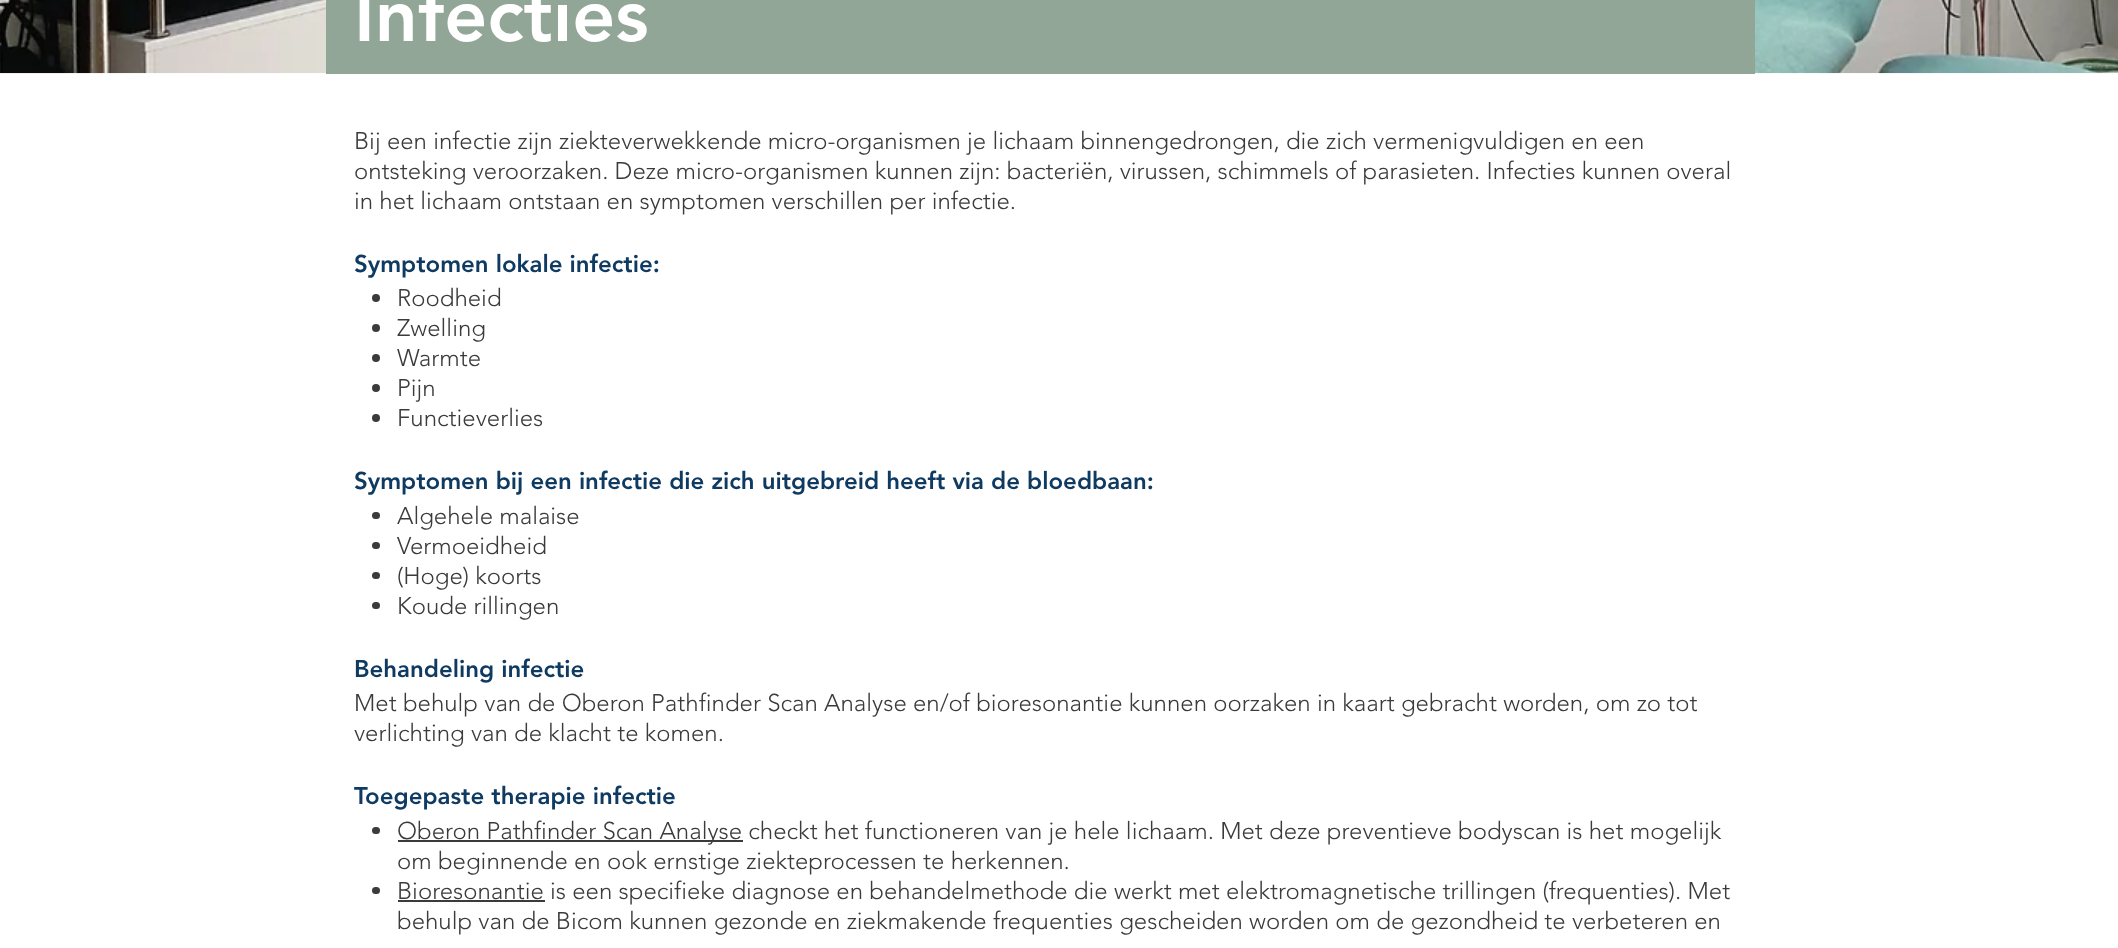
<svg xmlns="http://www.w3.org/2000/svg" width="2118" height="948">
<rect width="100%" height="100%" fill="#fff"/>
<image x="0" y="0" width="2118" height="74" href="media/1.png"/>
<rect x="326" width="1429" height="74" fill="#91a697"/>
<text x="354" y="41" style="font-family:'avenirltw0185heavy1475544';font-size:75px;font-weight:900;fill:#fff">Infecties</text>
<text x="354" y="149" style="font-family:'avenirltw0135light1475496';font-size:24px;font-weight:300;fill:#3b3b3b">Bij een infectie zijn ziekteverwekkende micro-organismen je lichaam binnengedrongen, die zich vermenigvuldigen en een</text>
<text x="354" y="179" style="font-family:'avenirltw0135light1475496';font-size:24px;font-weight:300;fill:#3b3b3b">ontsteking veroorzaken. Deze micro-organismen kunnen zijn: bacteriën, virussen, schimmels of parasieten. Infecties kunnen overal</text>
<text x="354" y="209" style="font-family:'avenirltw0135light1475496';font-size:24px;font-weight:300;fill:#3b3b3b">in het lichaam ontstaan en symptomen verschillen per infectie.</text>
<text x="354" y="272" style="font-family:'avenirltw0185heavy1475544';font-size:24px;font-weight:900;fill:#0f3a61">Symptomen lokale infectie:</text>
<circle cx="376" cy="298" r="4" fill="#3b3b3b"/>
<text x="397" y="306" style="font-family:'avenirltw0135light1475496';font-size:24px;font-weight:300;fill:#3b3b3b">Roodheid</text>
<circle cx="376" cy="328" r="4" fill="#3b3b3b"/>
<text x="397" y="336" style="font-family:'avenirltw0135light1475496';font-size:24px;font-weight:300;fill:#3b3b3b">Zwelling</text>
<circle cx="376" cy="358" r="4" fill="#3b3b3b"/>
<text x="397" y="366" style="font-family:'avenirltw0135light1475496';font-size:24px;font-weight:300;fill:#3b3b3b">Warmte</text>
<circle cx="376" cy="388" r="4" fill="#3b3b3b"/>
<text x="397" y="396" style="font-family:'avenirltw0135light1475496';font-size:24px;font-weight:300;fill:#3b3b3b">Pijn</text>
<circle cx="376" cy="418" r="4" fill="#3b3b3b"/>
<text x="397" y="426" style="font-family:'avenirltw0135light1475496';font-size:24px;font-weight:300;fill:#3b3b3b">Functieverlies</text>
<text x="354" y="489" style="font-family:'avenirltw0185heavy1475544';font-size:24px;font-weight:900;fill:#0f3a61">Symptomen bij een infectie die zich uitgebreid heeft via de bloedbaan:</text>
<rect x="372" y="512" width="8" height="7" rx="3.5" fill="#3b3b3b"/>
<text x="397" y="524" style="font-family:'avenirltw0135light1475496';font-size:24px;font-weight:300;fill:#3b3b3b">Algehele malaise</text>
<rect x="372" y="542" width="8" height="7" rx="3.5" fill="#3b3b3b"/>
<text x="397" y="554" style="font-family:'avenirltw0135light1475496';font-size:24px;font-weight:300;fill:#3b3b3b">Vermoeidheid</text>
<rect x="372" y="572" width="8" height="7" rx="3.5" fill="#3b3b3b"/>
<text x="397" y="584" style="font-family:'avenirltw0135light1475496';font-size:24px;font-weight:300;fill:#3b3b3b">(Hoge) koorts</text>
<rect x="372" y="602" width="8" height="7" rx="3.5" fill="#3b3b3b"/>
<text x="397" y="614" style="font-family:'avenirltw0135light1475496';font-size:24px;font-weight:300;fill:#3b3b3b">Koude rillingen</text>
<text x="354" y="677" style="font-family:'avenirltw0185heavy1475544';font-size:24px;font-weight:900;fill:#0f3a61">Behandeling infectie</text>
<text x="354" y="711" style="font-family:'avenirltw0135light1475496';font-size:24px;font-weight:300;fill:#3b3b3b">Met behulp van de Oberon Pathfinder Scan Analyse en/of bioresonantie kunnen oorzaken in kaart gebracht worden, om zo tot</text>
<text x="354" y="741" style="font-family:'avenirltw0135light1475496';font-size:24px;font-weight:300;fill:#3b3b3b">verlichting van de klacht te komen.</text>
<text x="354" y="804" style="font-family:'avenirltw0185heavy1475544';font-size:24px;font-weight:900;fill:#0f3a61">Toegepaste therapie infectie</text>
<rect x="372" y="827" width="8" height="7" rx="3.5" fill="#3b3b3b"/>
<rect x="398" y="840" width="345" height="2" fill="#3b3b3b"/>
<text x="397" y="839" style="font-family:'avenirltw0135light1475496';font-size:24px;font-weight:300;fill:#3b3b3b">Oberon Pathfinder Scan Analyse checkt het functioneren van je hele lichaam. Met deze preventieve bodyscan is het mogelijk</text>
<text x="397" y="869" style="font-family:'avenirltw0135light1475496';font-size:24px;font-weight:300;fill:#3b3b3b">om beginnende en ook ernstige ziekteprocessen te herkennen.</text>
<rect x="372" y="887" width="8" height="7" rx="3.5" fill="#3b3b3b"/>
<rect x="398" y="900" width="147" height="2" fill="#3b3b3b"/>
<text x="397" y="899" style="font-family:'avenirltw0135light1475496';font-size:24px;font-weight:300;fill:#3b3b3b">Bioresonantie is een specifieke diagnose en behandelmethode die werkt met elektromagnetische trillingen (frequenties). Met</text>
<text x="397" y="929" style="font-family:'avenirltw0135light1475496';font-size:24px;font-weight:300;fill:#3b3b3b">behulp van de Bicom kunnen gezonde en ziekmakende frequenties gescheiden worden om de gezondheid te verbeteren en</text>
</svg>
